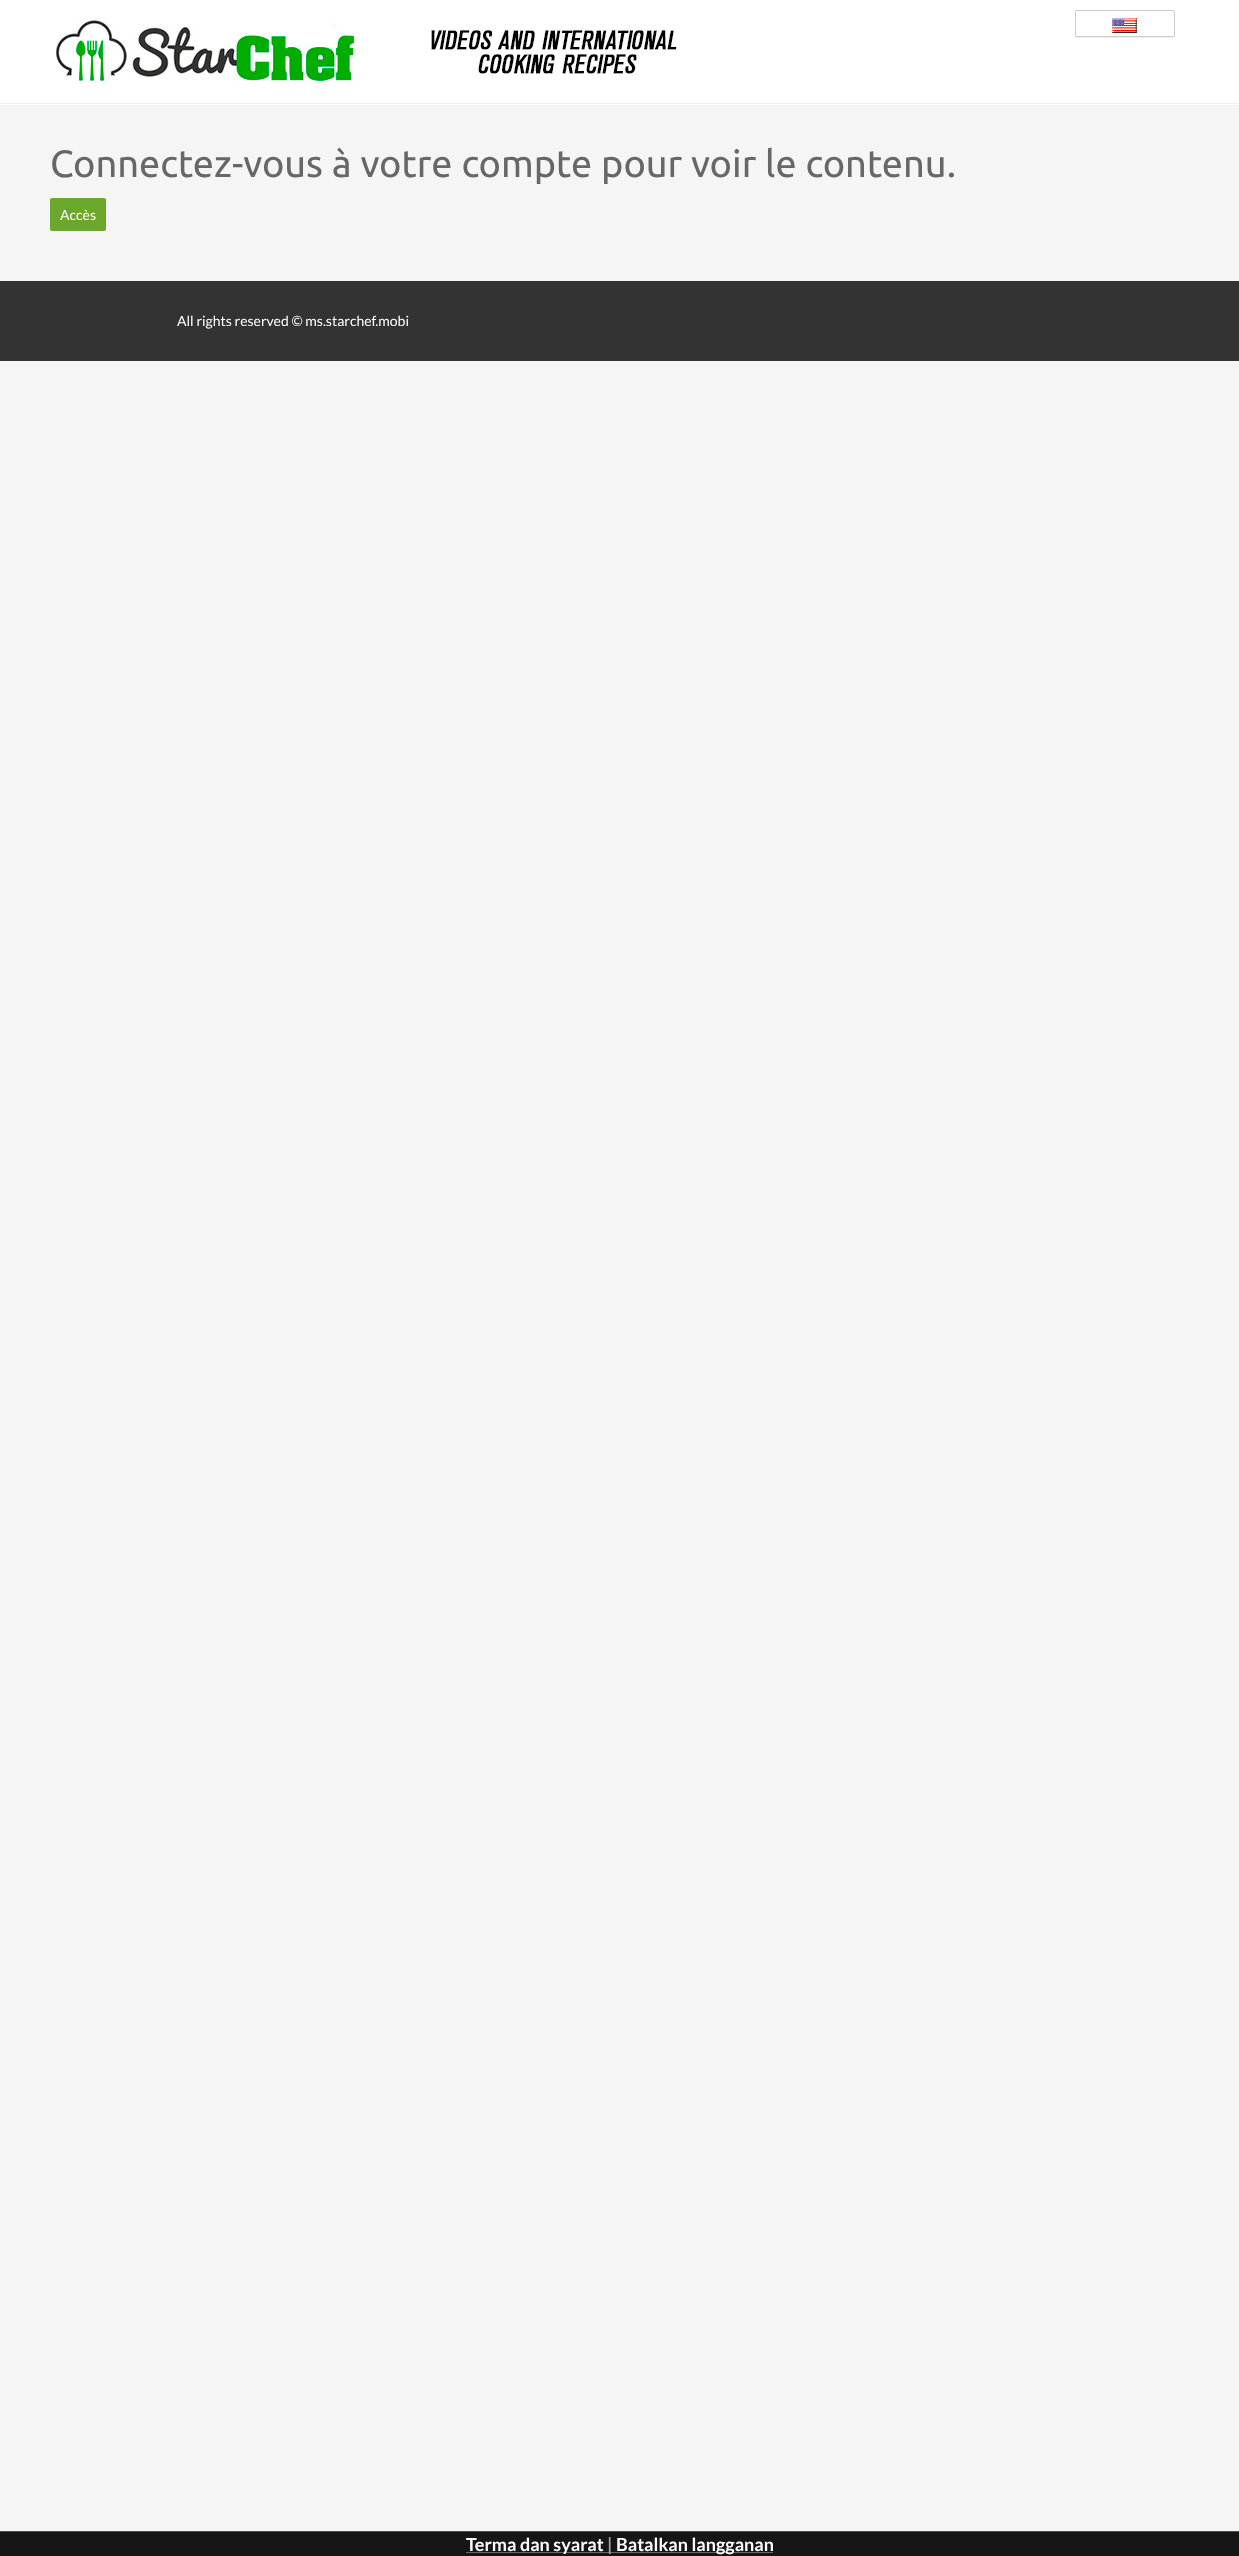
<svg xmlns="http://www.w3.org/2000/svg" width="1239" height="2556">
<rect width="100%" height="100%" fill="#f5f5f5"/>
<rect width="1239" height="103" fill="#fff"/>
<image x="56" y="20" width="621" height="63" href="media/1.png"/>
<rect x="1075" y="11" width="100" height="27" rx="2" fill="#5a5a5a1a" filter="blur(0.5px)"/>
<rect x="1075.5" y="10.5" width="99" height="26" rx="1.5" fill="#fff" stroke="#ccc"/>
<image x="1112" y="18" width="25" height="15" href="media/2.png"/>
<rect y="103" width="1239" height="2" rx="1" fill="#fff"/>
<rect x="1" y="103" width="1238" height="1" fill="#eee"/>
<text x="50" y="177" style="font-family:Ubuntu;font-size:38px;fill:#676767">Connectez-vous à votre compte pour voir le contenu.</text>
<rect x="50" y="198" width="56" height="33" rx="2" fill="#6ba72b"/>
<text x="60" y="220" style="font-family:Lato;font-size:14px;fill:#fff">Accès</text>
<rect y="281" width="1239" height="80" fill="#333"/>
<text x="177" y="326" style="font-family:Lato;font-size:14px;fill:#fff">All rights reserved © ms.starchef.mobi</text>
<rect y="2532" width="1239" height="24" fill="#161616"/>
<rect y="2531" width="1239" height="1" fill="#4d4d4d"/>
<rect x="466" y="2552" width="307" height="1" fill="#676767"/>
<text x="466" y="2551" style="font-family:Lato;font-size:18px;font-weight:bold;fill:#fff">Terma dan syarat</text>
<text x="607" y="2551" style="font-family:Lato;font-size:18px;font-weight:bold;fill:#a3a3a3">|</text>
<text x="616" y="2551" style="font-family:Lato;font-size:18px;font-weight:bold;fill:#fff">Batalkan langganan</text>
</svg>
